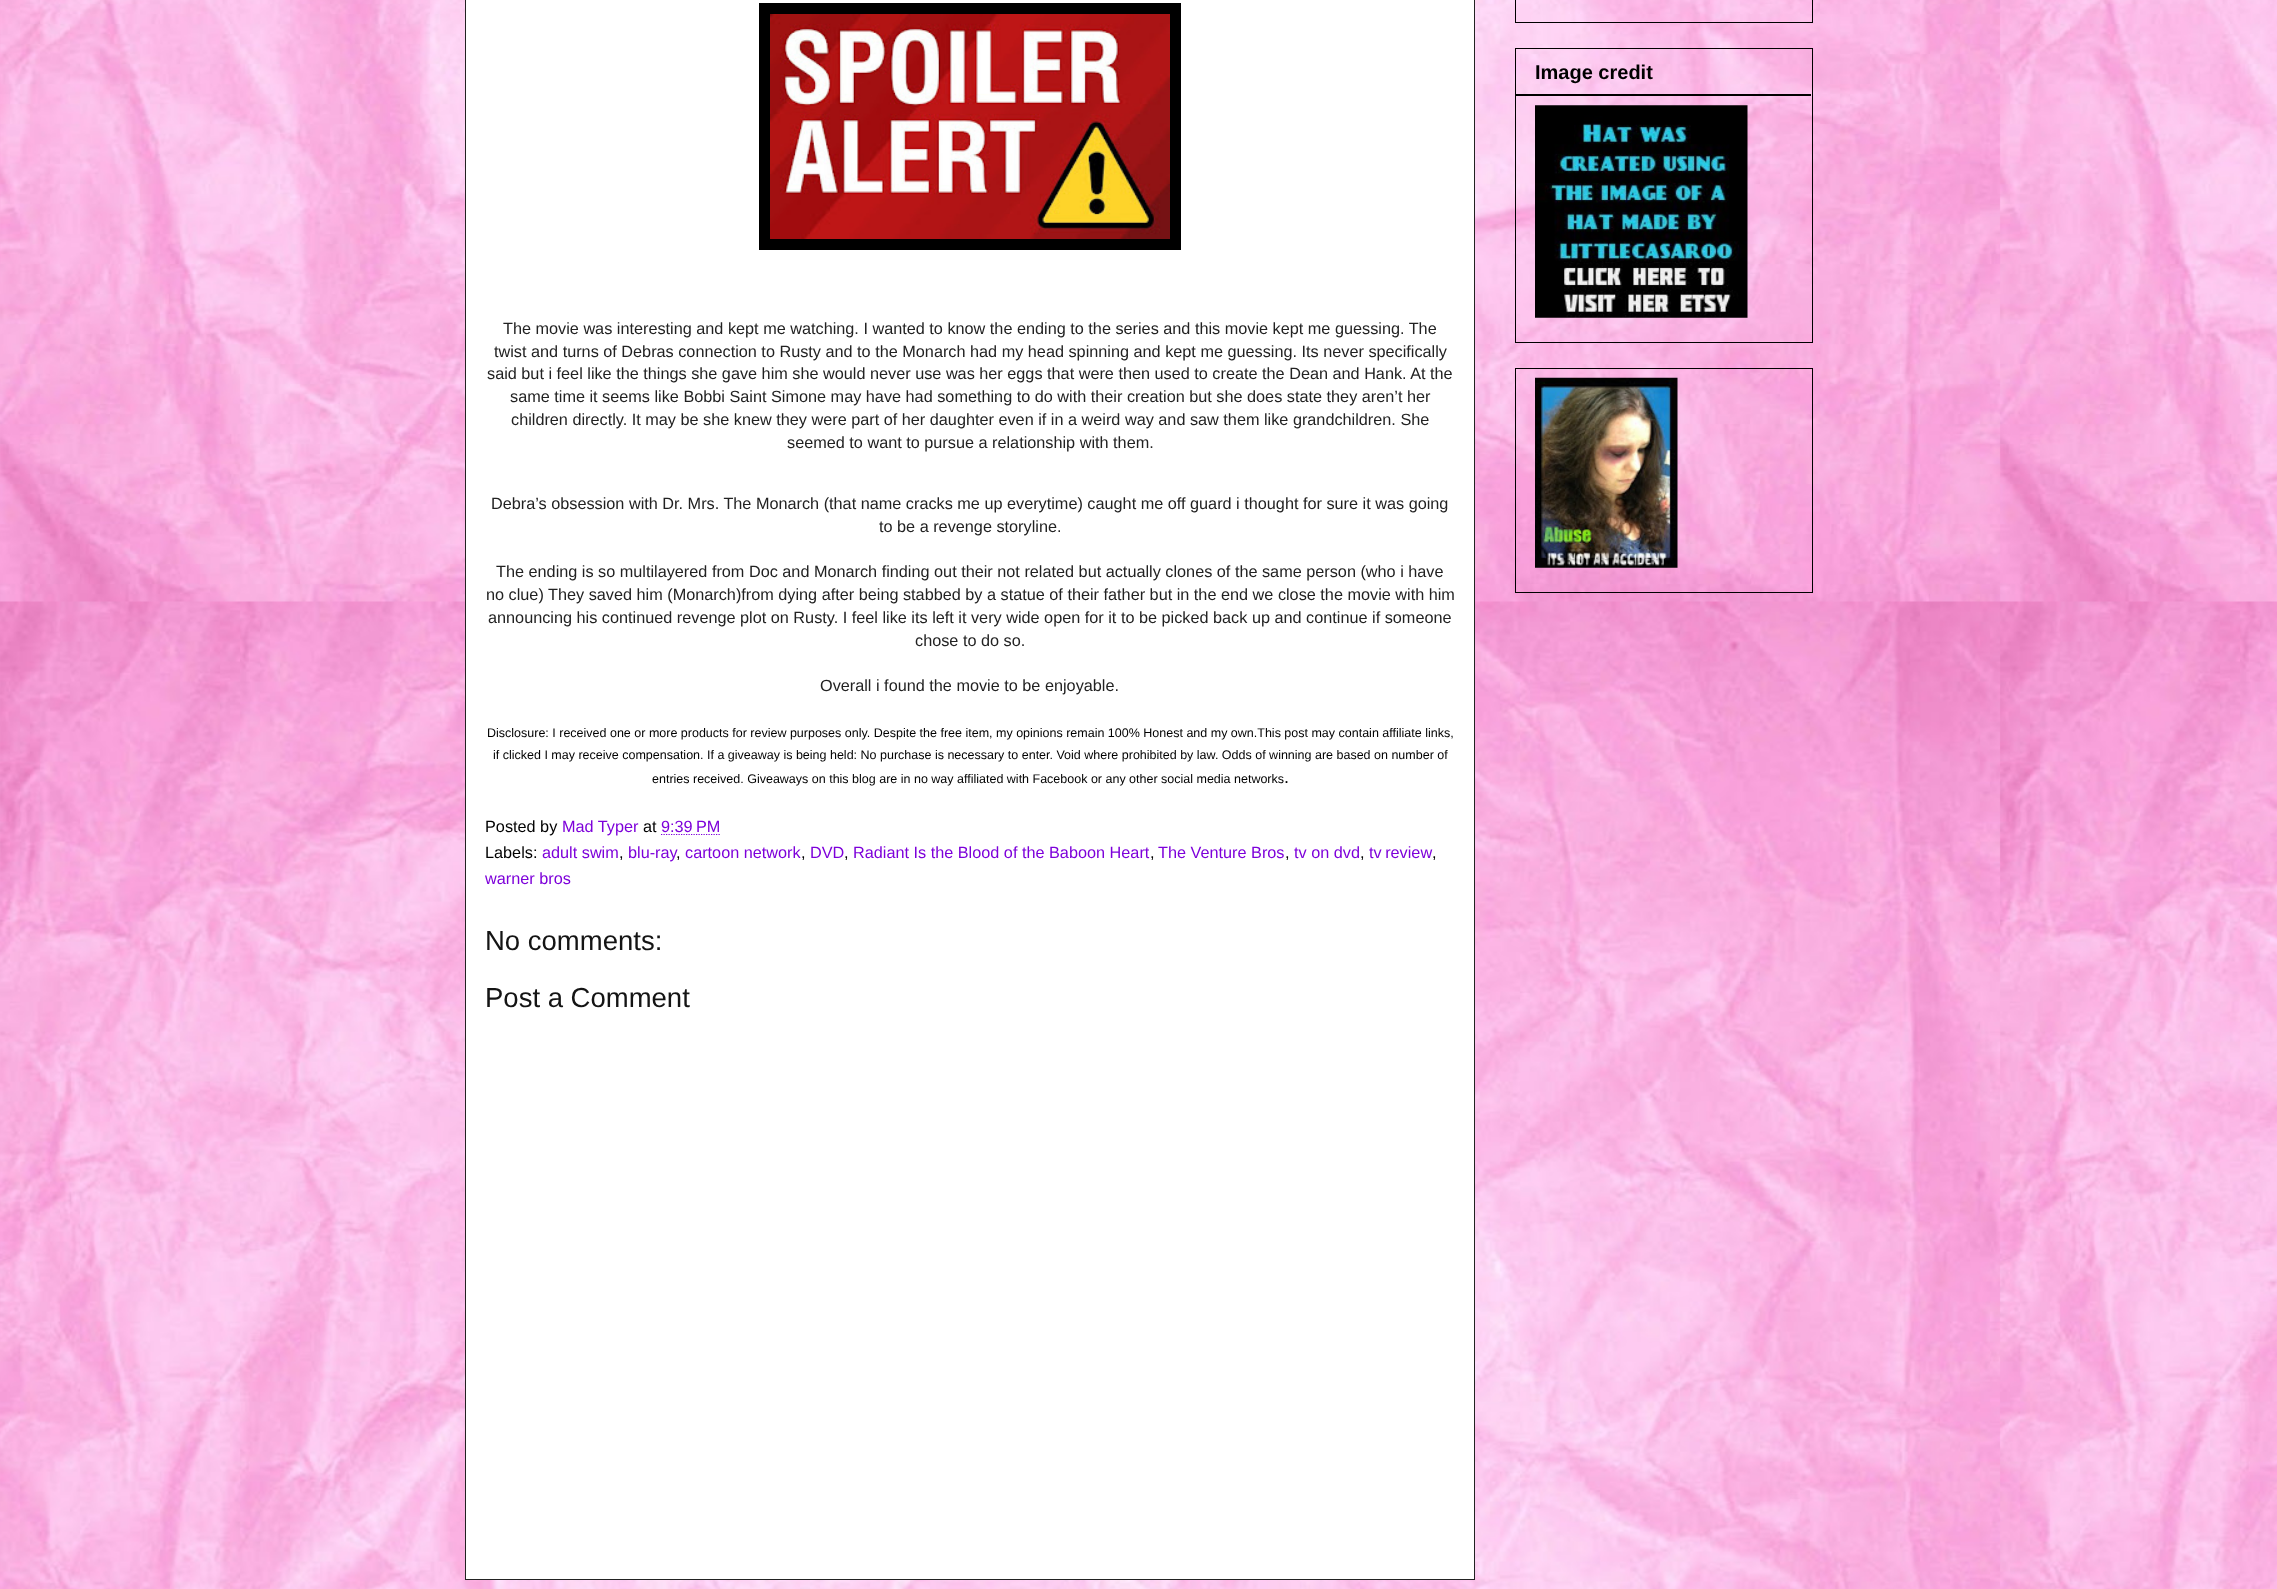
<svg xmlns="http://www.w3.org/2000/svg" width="2277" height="1589">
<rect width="100%" height="100%" fill="#fff"/>
<image x="0" y="0" width="2277" height="1589" href="media/1.png"/>
<rect x="1515.5" y="-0.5" width="297" height="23" fill="none" stroke="#000"/>
<rect x="1515.5" y="48.5" width="297" height="294" fill="none" stroke="#000"/>
<text x="1535" y="79" style="font-family:Liberation Sans;font-size:20px;font-weight:bold;fill:#000">Image credit</text>
<rect x="1516" y="94" width="295" height="2" fill="#000"/>
<image x="1535" y="105" width="213" height="213" href="media/2.png"/>
<rect x="1515.5" y="368.5" width="297" height="224" fill="none" stroke="#000"/>
<image x="1535" y="377" width="143" height="191" href="media/3.png"/>
<rect x="465.5" y="-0.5" width="1009" height="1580" fill="#fff" stroke="#222"/>
<rect x="759" y="3" width="422" height="247" fill="#000"/>
<image x="770" y="14" width="400" height="225" href="media/4.png"/>
<text x="503" y="334" style="font-family:Liberation Sans;font-size:16.25px;fill:#222">The movie was interesting and kept me watching. I wanted to know the ending to the series and this movie kept me guessing. The</text>
<text x="494" y="357" style="font-family:Liberation Sans;font-size:16.25px;fill:#222">twist and turns of Debras connection to Rusty and to the Monarch had my head spinning and kept me guessing. Its never specifically</text>
<text x="487" y="379" style="font-family:Liberation Sans;font-size:16.25px;fill:#222">said but i feel like the things she gave him she would never use was her eggs that were then used to create the Dean and Hank. At the</text>
<text x="510" y="402" style="font-family:Liberation Sans;font-size:16.25px;fill:#222">same time it seems like Bobbi Saint Simone may have had something to do with their creation but she does state they aren’t her</text>
<text x="511" y="425" style="font-family:Liberation Sans;font-size:16.25px;fill:#222">children directly. It may be she knew they were part of her daughter even if in a weird way and saw them like grandchildren. She</text>
<text x="787" y="448" style="font-family:Liberation Sans;font-size:16.25px;fill:#222">seemed to want to pursue a relationship with them.</text>
<text x="491" y="509" style="font-family:Liberation Sans;font-size:16.25px;fill:#222">Debra’s obsession with Dr. Mrs. The Monarch (that name cracks me up everytime) caught me off guard i thought for sure it was going</text>
<text x="879" y="532" style="font-family:Liberation Sans;font-size:16.25px;fill:#222">to be a revenge storyline.</text>
<text x="496" y="577" style="font-family:Liberation Sans;font-size:16.25px;fill:#222">The ending is so multilayered from Doc and Monarch finding out their not related but actually clones of the same person (who i have</text>
<text x="486" y="600" style="font-family:Liberation Sans;font-size:16.25px;fill:#222">no clue) They saved him (Monarch)from dying after being stabbed by a statue of their father but in the end we close the movie with him</text>
<text x="488" y="623" style="font-family:Liberation Sans;font-size:16.25px;fill:#222">announcing his continued revenge plot on Rusty. I feel like its left it very wide open for it to be picked back up and continue if someone</text>
<text x="915" y="646" style="font-family:Liberation Sans;font-size:16.25px;fill:#222">chose to do so.</text>
<text x="820" y="691" style="font-family:Liberation Sans;font-size:16.25px;fill:#222">Overall i found the movie to be enjoyable.</text>
<text x="487" y="737" style="font-family:Liberation Sans;font-size:12.5px;fill:#000">Disclosure: I received one or more products for review purposes only. Despite the free item, my opinions remain 100% Honest and my own.This post may contain affiliate links,</text>
<text x="493" y="759" style="font-family:Liberation Sans;font-size:12.5px;fill:#000">if clicked I may receive compensation. If a giveaway is being held: No purchase is necessary to enter. Void where prohibited by law. Odds of winning are based on number of</text>
<text x="652" y="783" style="font-family:Liberation Sans;font-size:12.5px;fill:#000">entries received. Giveaways on this blog are in no way affiliated with Facebook or any other social media networks</text>
<text x="1284" y="783" style="font-family:Liberation Sans;font-size:18px;fill:#000">.</text>
<text x="485" y="832" style="font-family:Liberation Sans;font-size:16.25px;fill:#000">Posted by</text>
<text x="562" y="832" style="font-family:Liberation Sans;font-size:16.25px;fill:#7d00da">Mad Typer</text>
<text x="643" y="832" style="font-family:Liberation Sans;font-size:16.25px;fill:#000">at</text>
<text x="661" y="832" style="font-family:Liberation Sans;font-size:16.25px;fill:#7d00da">9:39 PM</text>
<path d="M661 834.5h59" fill="none" stroke="#7d00da" stroke-width="1.2" stroke-dasharray="1.25 1.25"/>
<text x="485" y="858" style="font-family:Liberation Sans;font-size:16.25px;fill:#000">Labels:</text>
<text x="542" y="858" style="font-family:Liberation Sans;font-size:16.25px;fill:#7d00da">adult swim</text>
<text x="619" y="858" style="font-family:Liberation Sans;font-size:16.25px;fill:#000">,</text>
<text x="628" y="858" style="font-family:Liberation Sans;font-size:16.25px;fill:#7d00da">blu-ray</text>
<text x="676" y="858" style="font-family:Liberation Sans;font-size:16.25px;fill:#000">,</text>
<text x="685" y="858" style="font-family:Liberation Sans;font-size:16.25px;fill:#7d00da">cartoon network</text>
<text x="801" y="858" style="font-family:Liberation Sans;font-size:16.25px;fill:#000">,</text>
<text x="810" y="858" style="font-family:Liberation Sans;font-size:16.25px;fill:#7d00da">DVD</text>
<text x="844" y="858" style="font-family:Liberation Sans;font-size:16.25px;fill:#000">,</text>
<text x="853" y="858" style="font-family:Liberation Sans;font-size:16.25px;fill:#7d00da">Radiant Is the Blood of the Baboon Heart</text>
<text x="1150" y="858" style="font-family:Liberation Sans;font-size:16.25px;fill:#000">,</text>
<text x="1158" y="858" style="font-family:Liberation Sans;font-size:16.25px;fill:#7d00da">The Venture Bros</text>
<text x="1285" y="858" style="font-family:Liberation Sans;font-size:16.25px;fill:#000">,</text>
<text x="1294" y="858" style="font-family:Liberation Sans;font-size:16.25px;fill:#7d00da">tv on dvd</text>
<text x="1360" y="858" style="font-family:Liberation Sans;font-size:16.25px;fill:#000">,</text>
<text x="1369" y="858" word-spacing="-1" style="font-family:Liberation Sans;font-size:16.25px;fill:#7d00da">tv review</text>
<text x="1432" y="858" style="font-family:Liberation Sans;font-size:16.25px;fill:#000">,</text>
<text x="485" y="884" style="font-family:Liberation Sans;font-size:16.25px;fill:#7d00da">warner bros</text>
<text x="485" y="950" style="font-family:Liberation Sans;font-size:27.5px;fill:#141414">No comments:</text>
<text x="485" y="1007" style="font-family:Liberation Sans;font-size:27.5px;fill:#141414">Post a Comment</text>
</svg>
